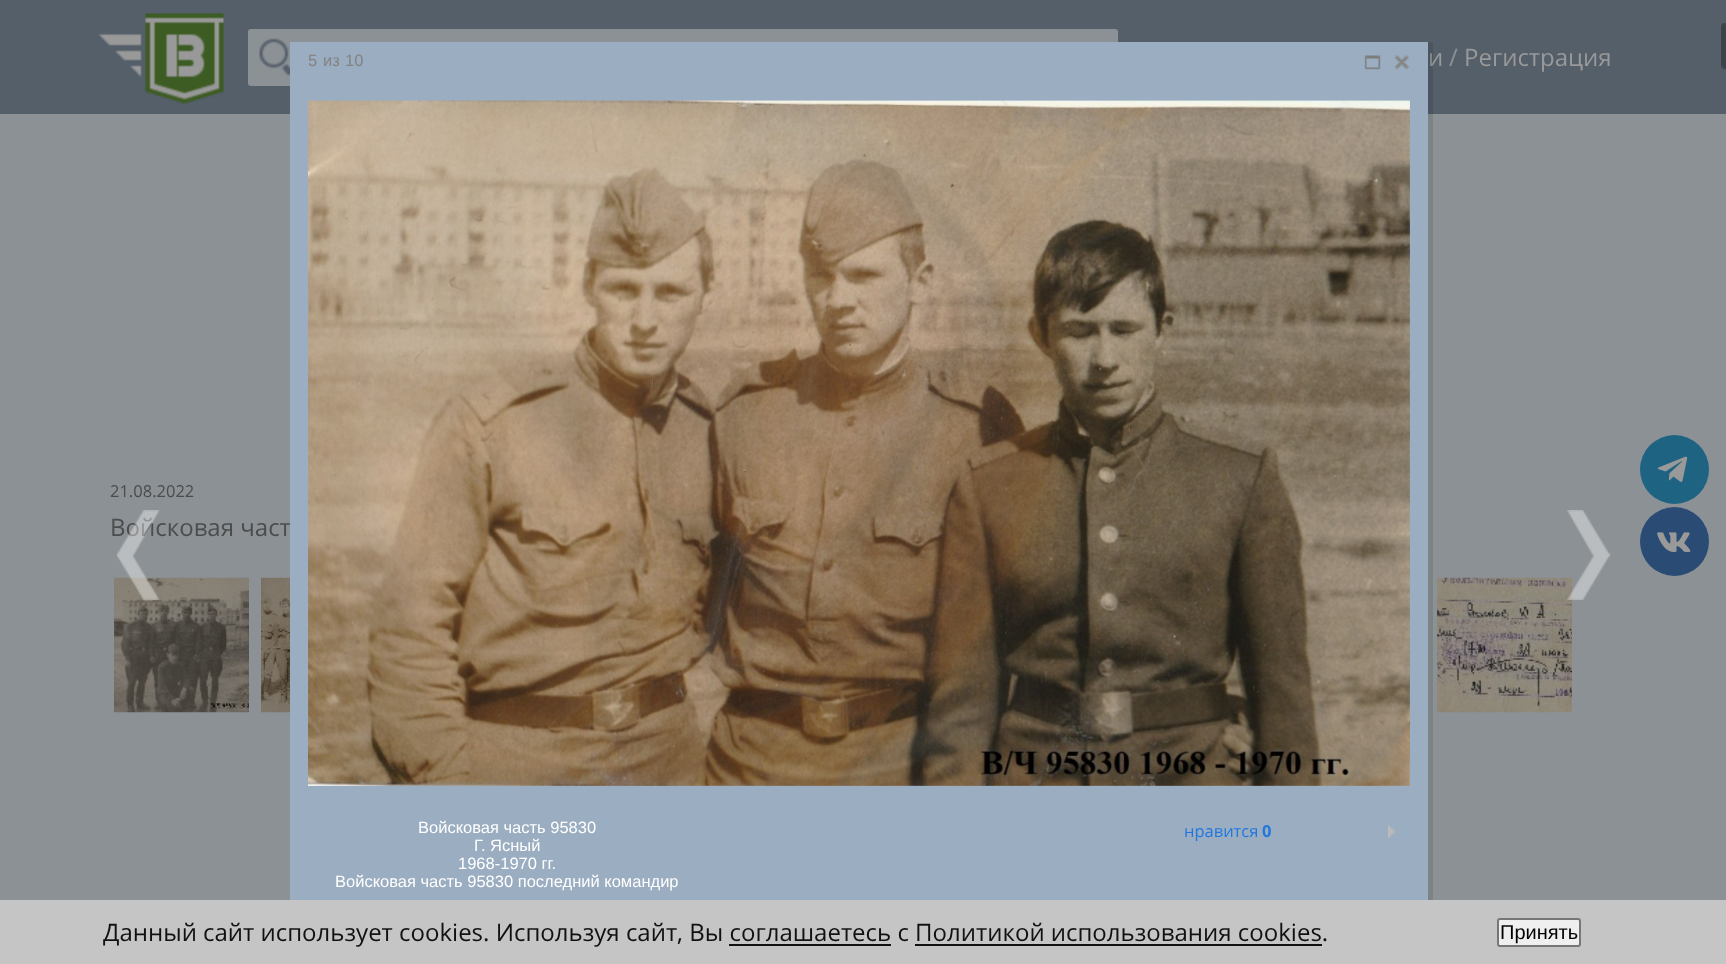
<svg xmlns="http://www.w3.org/2000/svg" width="1726" height="964">
<rect width="100%" height="100%" fill="#8c9195"/>
<rect width="1726" height="114" fill="#555f6a"/>
<image x="98" y="13" width="126" height="91" href="media/1.png"/>
<rect x="248" y="29" width="870" height="57" rx="3" fill="#8c9195"/>
<image x="259" y="38" width="31" height="38" href="media/2.png"/>
<text x="1428" y="66" style="font-family:Open Sans;font-size:24px;fill:#999">и</text>
<text x="1449" y="66" style="font-family:Open Sans;font-size:24px;fill:#8c9195">/</text>
<text x="1464" y="66" style="font-family:Open Sans;font-size:24px;fill:#999">Регистрация</text>
<text x="110" y="497" style="font-family:Open Sans;font-size:16.5px;fill:#4c4c4c">21.08.2022</text>
<text x="110" y="536" style="font-family:Open Sans;font-size:24px;fill:#4c4c4c">Войсковая част</text>
<image x="114" y="577" width="135" height="136" href="media/3.png"/>
<image x="261" y="577" width="29" height="136" href="media/4.png"/>
<image x="1437" y="577" width="135" height="136" href="media/5.png"/>
<image x="117" y="510" width="43" height="90" href="media/6.png"/>
<rect x="1428" y="42" width="5" height="858" fill="#0000001a"/>
<rect x="290" y="42" width="1138" height="858" fill="#9badc1"/>
<text x="308" y="66" style="font-family:Liberation Sans;font-size:16.5px;fill:#838383">5</text>
<text x="323" y="66" style="font-family:Liberation Sans;font-size:16.5px;fill:#838383">из</text>
<text x="345" y="66" style="font-family:Liberation Sans;font-size:16.5px;fill:#838383">10</text>
<image x="1364" y="55" width="17" height="15" href="media/7.png"/>
<image x="1394" y="55" width="16" height="15" href="media/8.png"/>
<image x="308" y="100" width="1102" height="686" href="media/9.png"/>
<text x="418" y="833" style="font-family:Liberation Sans;font-size:16.5px;fill:#fff">Войсковая часть 95830</text>
<text x="474" y="851" style="font-family:Liberation Sans;font-size:16.5px;fill:#fff">Г. Ясный</text>
<text x="458" y="869" style="font-family:Liberation Sans;font-size:16.5px;fill:#fff">1968-1970 гг.</text>
<text x="335" y="887" style="font-family:Liberation Sans;font-size:16.5px;fill:#fff">Войсковая часть 95830 последний командир</text>
<text x="1184" y="837" style="font-family:Open Sans;font-size:16.5px;fill:#27d">нравится</text>
<text x="1262" y="837" style="font-family:Open Sans;font-size:16.5px;font-weight:bold;fill:#27d">0</text>
<image x="1388" y="825" width="8" height="14" href="media/10.png"/>
<image x="1721" y="23" width="5" height="47" href="media/11.png"/>
<image x="1567" y="510" width="43" height="90" href="media/12.png"/>
<circle cx="1674.5" cy="469.5" r="34.5" fill="#1e6482"/>
<image x="1657" y="456" width="31" height="26" href="media/13.png"/>
<circle cx="1674.5" cy="541.5" r="34.5" fill="#2a4c74"/>
<image x="1657" y="532" width="34" height="21" href="media/14.png"/>
<rect y="900" width="1726" height="64" fill="#c5c5c5"/>
<text x="103" y="941" style="font-family:Open Sans;font-size:24px;fill:#111">Данный сайт использует cookies. Используя сайт, Вы соглашаетесь с Политикой использования cookies.</text>
<rect x="729" y="944" width="162" height="2" fill="#111"/>
<rect x="915" y="944" width="407" height="2" fill="#111"/>
<rect x="1498" y="919" width="82" height="27" rx="2" fill="#efefef" stroke="#767676" stroke-width="2"/>
<text x="1500" y="939" style="font-family:Liberation Sans;font-size:20px;fill:#000">Принять</text>
</svg>
